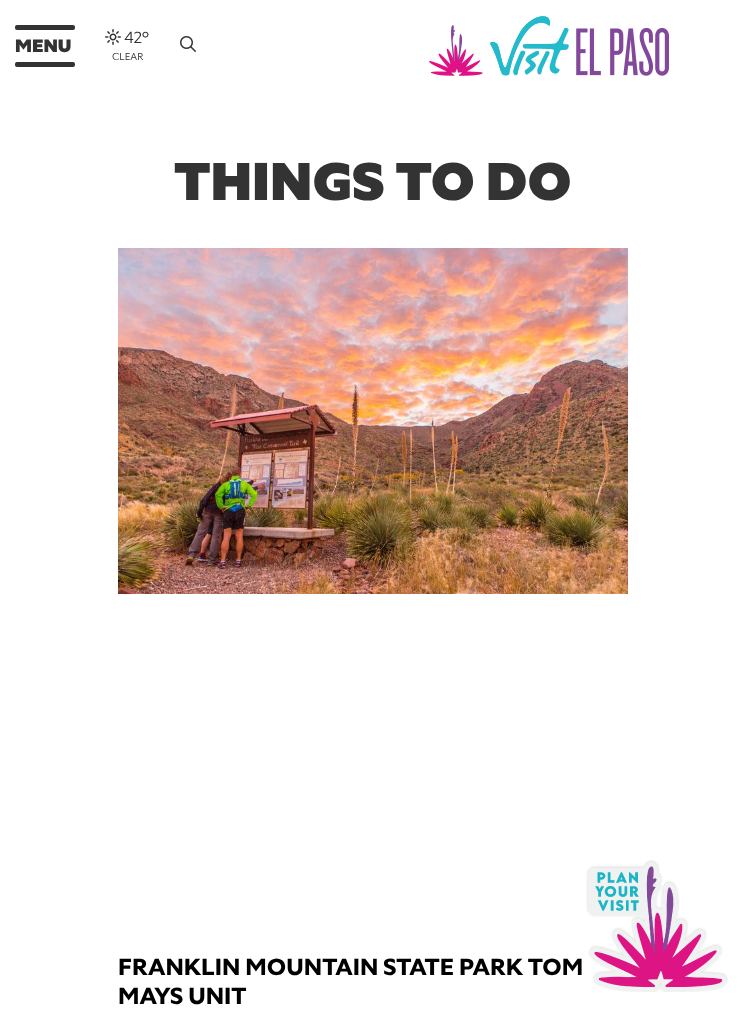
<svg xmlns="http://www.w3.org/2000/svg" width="746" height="1019">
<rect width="100%" height="100%" fill="#fff"/>
<rect x="15" y="25" width="60" height="5" rx="2" fill="#333"/>
<text x="15" y="52" style="font-family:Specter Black;font-size:18px;font-weight:900;fill:#333">MENU</text>
<rect x="15" y="62" width="60" height="5" rx="2" fill="#333"/>
<image x="105" y="29" width="16" height="16" href="media/1.png"/>
<text x="124" y="43" style="font-family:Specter;font-size:16px;fill:#333">42°</text>
<text x="112" y="60" style="font-family:Specter;font-size:10px;fill:#333">CLEAR</text>
<image x="180" y="36" width="16" height="16" href="media/2.png"/>
<image x="429" y="16" width="240" height="60" href="media/3.png"/>
<text x="174" y="200" style="font-family:Specter Black;font-size:53px;font-weight:900;fill:#333">THINGS TO DO</text>
<image x="118" y="248" width="510" height="346" href="media/4.png"/>
<text x="118" y="975" style="font-family:Specter;font-size:23.25px;font-weight:bold;fill:#000">FRANKLIN MOUNTAIN STATE PARK TOM</text>
<text x="118" y="1004" style="font-family:Specter;font-size:23.25px;font-weight:bold;fill:#000">MAYS UNIT</text>
<image x="586" y="860" width="142" height="132" href="media/5.png"/>
</svg>
